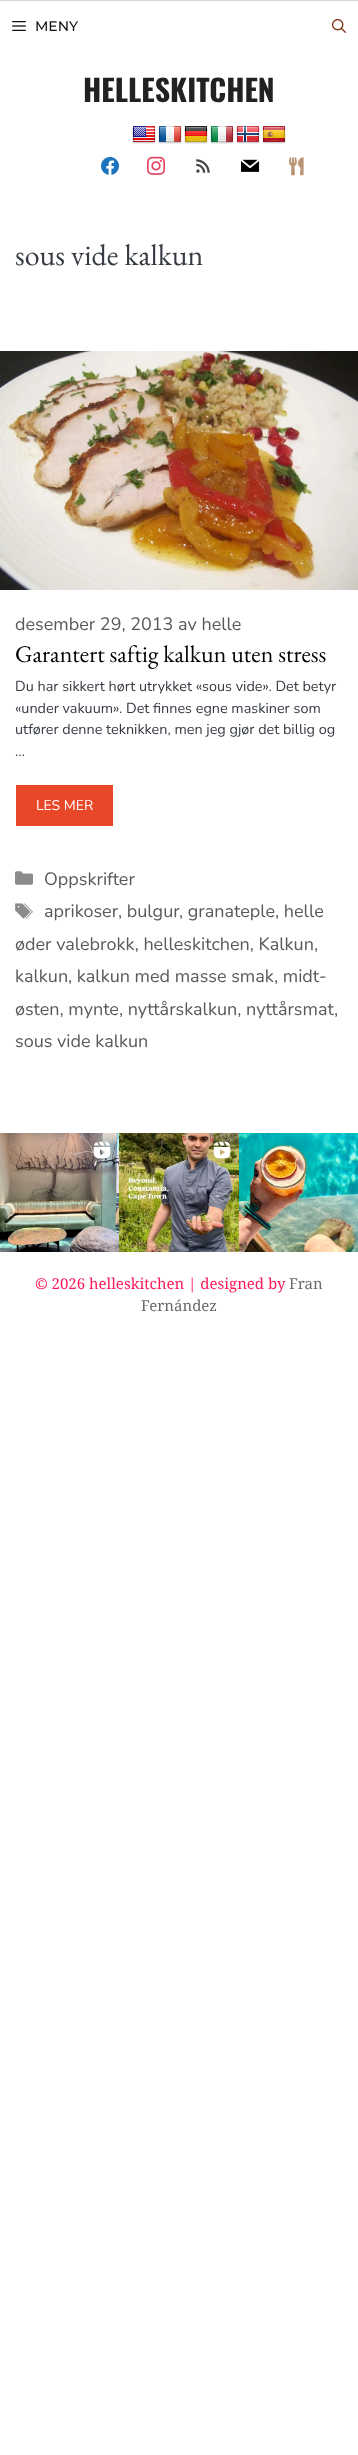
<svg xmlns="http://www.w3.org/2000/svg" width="358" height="2455">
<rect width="100%" height="100%" fill="#fff"/>
<rect width="358" height="1" fill="#d4d7d8"/>
<image x="12" y="21" width="14" height="10" href="media/1.png"/>
<text x="35" y="31" style="font-family:Montserrat;font-size:14px;font-weight:500;fill:#131313">MENY</text>
<image x="332" y="19" width="14" height="14" href="media/2.png"/>
<text x="83" y="102" style="font-family:Oswald;font-size:30px;font-weight:bold;fill:#222">HELLESKITCHEN</text>
<image x="132" y="126" width="24" height="18" href="media/3.png"/>
<image x="158" y="126" width="24" height="18" href="media/4.png"/>
<image x="184" y="126" width="24" height="18" href="media/5.png"/>
<image x="210" y="126" width="24" height="18" href="media/6.png"/>
<image x="236" y="126" width="24" height="18" href="media/7.png"/>
<image x="262" y="126" width="24" height="18" href="media/8.png"/>
<image x="101" y="157" width="18" height="18" href="media/9.png"/>
<image x="147" y="156" width="18" height="19" href="media/10.png"/>
<image x="196" y="159" width="14" height="14" href="media/11.png"/>
<image x="241" y="159" width="19" height="13" href="media/12.png"/>
<image x="289" y="157" width="15" height="19" href="media/13.png"/>
<text x="15" y="265" style="font-family:EB Garamond;font-size:30px;fill:#363b43">sous vide kalkun</text>
<image x="0" y="351" width="358" height="239" href="media/14.png"/>
<text x="15" y="630" style="font-family:Nunito;font-size:18px;fill:#595959">desember 29, 2013 av helle</text>
<text x="15" y="662" style="font-family:EB Garamond;font-size:24px;fill:#000">Garantert saftig kalkun uten stress</text>
<text x="15" y="691" style="font-family:Nunito;font-size:14.4px;fill:#363b43">Du har sikkert hørt utrykket «sous vide». Det betyr</text>
<text x="15" y="713" style="font-family:Nunito;font-size:14.4px;fill:#363b43">«under vakuum». Det finnes egne maskiner som</text>
<text x="15" y="734" style="font-family:Nunito;font-size:14.4px;fill:#363b43">utfører denne teknikken, men jeg gjør det billig og</text>
<text x="15" y="756" style="font-family:Nunito;font-size:14.4px;fill:#363b43">…</text>
<rect x="16" y="785" width="97" height="41" fill="#e94828"/>
<text x="36" y="810" style="font-family:Nunito;font-size:14px;fill:#fff">LES MER</text>
<image x="15" y="871" width="18" height="14" href="media/15.png"/>
<text x="44" y="885" style="font-family:Nunito;font-size:18px;fill:#595959">Oppskrifter</text>
<image x="15" y="903" width="18" height="16" href="media/16.png"/>
<text x="44" y="917" style="font-family:Nunito;font-size:18px;fill:#595959">aprikoser</text>
<text x="118" y="917" style="font-family:Nunito;font-size:18px;fill:#595959">, bulgur</text>
<text x="179" y="917" style="font-family:Nunito;font-size:18px;fill:#595959">, granateple, helle</text>
<text x="15" y="950" style="font-family:Nunito;font-size:18px;fill:#595959">øder valebrokk, helleskitchen, Kalkun,</text>
<text x="15" y="982" style="font-family:Nunito;font-size:18px;fill:#595959">kalkun, kalkun med masse smak, midt-</text>
<text x="15" y="1015" style="font-family:Nunito;font-size:18px;fill:#595959">østen, mynte, nyttårskalkun, nyttårsmat,</text>
<text x="15" y="1047" style="font-family:Nunito;font-size:18px;fill:#595959">sous vide kalkun</text>
<image x="0" y="1133" width="119" height="119" href="media/17.png"/>
<image x="93" y="1141" width="18" height="18" href="media/18.png"/>
<image x="119" y="1133" width="120" height="119" href="media/19.png"/>
<image x="213" y="1141" width="18" height="18" href="media/20.png"/>
<image x="239" y="1133" width="119" height="119" href="media/21.png"/>
<text x="35" y="1289" style="font-family:Noto Serif;font-size:15px;fill:#ff1956">© 2026 helleskitchen | designed by</text>
<text x="289" y="1289" style="font-family:Noto Serif;font-size:15px;fill:#6a6a6a">Fran</text>
<text x="141" y="1311" style="font-family:Noto Serif;font-size:15px;fill:#6a6a6a">Fernández</text>
</svg>
